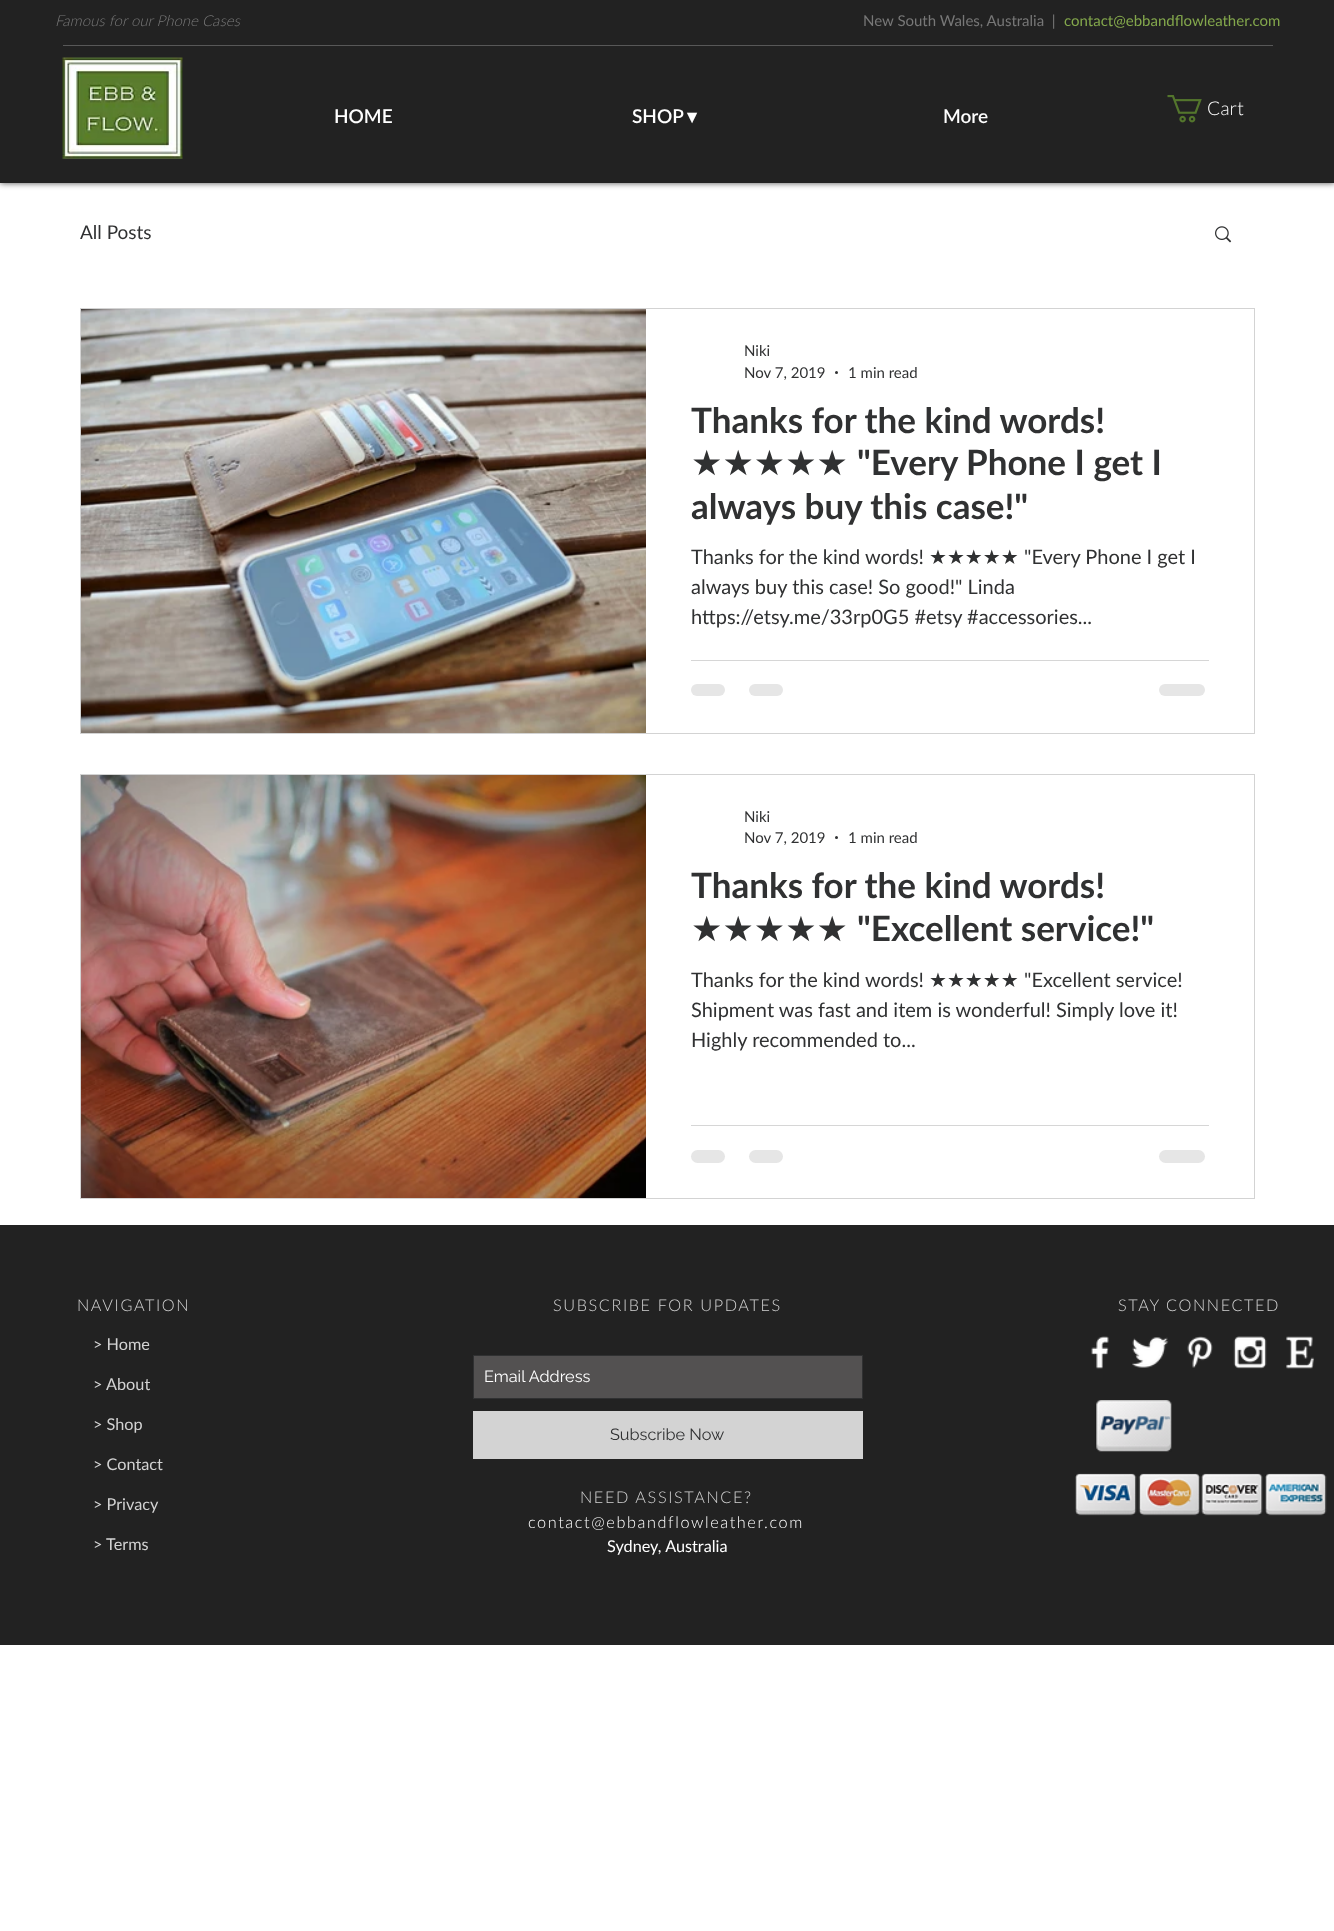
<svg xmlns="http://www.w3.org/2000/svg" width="1334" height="1931">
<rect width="100%" height="100%" fill="#fff"/>
<rect width="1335" height="183" fill="#000000b3" filter="blur(3px)"/>
<rect width="1334" height="183" fill="#222"/>
<text x="55" y="26" style="font-family:Lato;font-size:15px;font-weight:300;font-style:italic;fill:#777">Famous for our Phone Cases</text>
<text x="863" y="26" style="font-family:Lato;font-size:15px;fill:#777" xml:space="preserve">New South Wales, Australia  |</text>
<text x="1064" y="26" style="font-family:Lato;font-size:15px;fill:#83a74c">contact@ebbandflowleather.com</text>
<rect x="63" y="45" width="1210" height="1" fill="#585858"/>
<text x="334" y="123" style="font-family:Lato;font-size:19px;font-weight:600;fill:#fff">HOME</text>
<text x="632" y="123" style="font-family:Lato;font-size:19px;font-weight:600;fill:#fff">SHOP</text>
<text x="687" y="123" style="font-family:DejaVu Sans;font-size:19px;font-weight:bold;fill:#fff">▾</text>
<text x="943" y="123" style="font-family:Lato;font-size:19px;font-weight:600;fill:#fff">More</text>
<image x="62" y="57" width="121" height="102" href="media/1.png"/>
<image x="1167" y="95" width="35" height="28" href="media/2.png"/>
<text x="1207" y="115" style="font-family:'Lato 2';font-size:19px;font-weight:300;fill:#fff">Cart</text>
<text x="80" y="239" style="font-family:Lato;font-size:19px;fill:#303132">All Posts</text>
<image x="1215" y="226" width="17" height="17" href="media/3.png"/>
<rect x="80.5" y="308.5" width="1174" height="425" fill="none" stroke="#d3d3d3"/>
<image x="81" y="309" width="565" height="424" href="media/4.png"/>
<text x="744" y="356" style="font-family:Lato;font-size:15px;fill:#303132">Niki</text>
<text x="744" y="378" style="font-family:Lato;font-size:15px;fill:#303132">Nov 7, 2019</text>
<circle cx="836.5" cy="372.5" r="1.5" fill="#303132"/>
<text x="848" y="378" style="font-family:Lato;font-size:15px;fill:#303132">1 min read</text>
<text x="691" y="433" style="font-family:Lato;font-size:35px;font-weight:bold;fill:#303132">Thanks for the kind words!</text>
<text x="691" y="475" style="font-family:DejaVu Sans;font-size:35px;fill:#303132">★★★★★</text>
<text x="857" y="475" style="font-family:Lato;font-size:35px;font-weight:bold;fill:#303132">"Every Phone I get I</text>
<text x="691" y="519" style="font-family:Lato;font-size:35px;font-weight:bold;fill:#303132">always buy this case!"</text>
<text x="691" y="564" style="font-family:Lato;font-size:20px;fill:#303132">Thanks for the kind words!</text>
<text x="929" y="564" style="font-family:DejaVu Sans;font-size:20px;fill:#303132">★★★★★</text>
<text x="1024" y="564" style="font-family:Lato;font-size:20px;fill:#303132">"Every Phone I get I</text>
<text x="691" y="594" style="font-family:Lato;font-size:20px;fill:#303132">always buy this case! So good!" Linda</text>
<text x="691" y="624" style="font-family:Lato;font-size:20px;fill:#303132">https://etsy.me/33rp0G5 #etsy #accessories...</text>
<rect x="691" y="660" width="518" height="1" fill="#d6d6d6"/>
<rect x="691" y="684" width="34" height="12" rx="6" fill="#e6e6e6"/>
<rect x="749" y="684" width="34" height="12" rx="6" fill="#e6e6e6"/>
<rect x="1159" y="684" width="46" height="12" rx="6" fill="#e6e6e6"/>
<rect x="80.5" y="774.5" width="1174" height="424" fill="none" stroke="#d3d3d3"/>
<image x="81" y="775" width="565" height="423" href="media/5.png"/>
<text x="744" y="822" style="font-family:Lato;font-size:15px;fill:#303132">Niki</text>
<text x="744" y="843" style="font-family:Lato;font-size:15px;fill:#303132">Nov 7, 2019</text>
<circle cx="836.5" cy="837.5" r="1.5" fill="#303132"/>
<text x="848" y="843" style="font-family:Lato;font-size:15px;fill:#303132">1 min read</text>
<text x="691" y="898" style="font-family:Lato;font-size:35px;font-weight:bold;fill:#303132">Thanks for the kind words!</text>
<text x="691" y="941" style="font-family:DejaVu Sans;font-size:35px;fill:#303132">★★★★★</text>
<text x="857" y="941" style="font-family:Lato;font-size:35px;font-weight:bold;fill:#303132">"Excellent service!"</text>
<text x="691" y="987" style="font-family:Lato;font-size:20px;fill:#303132">Thanks for the kind words!</text>
<text x="929" y="987" style="font-family:DejaVu Sans;font-size:20px;fill:#303132">★★★★★</text>
<text x="1024" y="987" style="font-family:Lato;font-size:20px;fill:#303132">"Excellent service!</text>
<text x="691" y="1017" style="font-family:Lato;font-size:20px;fill:#303132">Shipment was fast and item is wonderful! Simply love it!</text>
<text x="691" y="1047" style="font-family:Lato;font-size:20px;fill:#303132">Highly recommended to...</text>
<rect x="691" y="1125" width="518" height="1" fill="#d6d6d6"/>
<rect x="691" y="1150" width="34" height="13" rx="6.5" fill="#e6e6e6"/>
<rect x="749" y="1150" width="34" height="13" rx="6.5" fill="#e6e6e6"/>
<rect x="1159" y="1150" width="46" height="13" rx="6.5" fill="#e6e6e6"/>
<rect y="1225" width="1334" height="420" fill="#222"/>
<text x="77" y="1311" style="font-family:Lato;font-size:16.25px;font-weight:300;letter-spacing:1.6px;fill:#d3d3d3">NAVIGATION</text>
<text x="93" y="1350" style="font-family:Lato;font-size:16.25px;fill:#d3d3d3">&gt; Home</text>
<text x="93" y="1390" style="font-family:Lato;font-size:16.25px;fill:#d3d3d3">&gt; About</text>
<text x="93" y="1430" style="font-family:Lato;font-size:16.25px;fill:#d3d3d3">&gt; Shop</text>
<text x="93" y="1470" style="font-family:Lato;font-size:16.25px;fill:#d3d3d3">&gt; Contact</text>
<text x="93" y="1510" style="font-family:Lato;font-size:16.25px;fill:#d3d3d3">&gt; Privacy</text>
<text x="93" y="1550" style="font-family:Lato;font-size:16.25px;fill:#d3d3d3">&gt; Terms</text>
<text x="553" y="1311" style="font-family:Lato;font-size:16.25px;font-weight:300;letter-spacing:1.6px;fill:#d3d3d3">SUBSCRIBE FOR UPDATES</text>
<rect x="473.5" y="1355.5" width="389" height="43" fill="#535151" stroke="#303132"/>
<text x="484" y="1382" style="font-family:Raleway;font-size:16.25px;fill:#fff">Email Address</text>
<rect x="473" y="1411" width="390" height="48" fill="#d3d3d3"/>
<text x="610" y="1440" style="font-family:Raleway;font-size:16.25px;fill:#303132">Subscribe Now</text>
<text x="580" y="1503" style="font-family:Lato;font-size:16.25px;font-weight:300;letter-spacing:1.6px;fill:#d3d3d3">NEED ASSISTANCE?</text>
<text x="528" y="1528" style="font-family:Lato;font-size:16.25px;font-weight:300;letter-spacing:1.6px;fill:#fff">contact@ebbandflowleather.com</text>
<text x="607" y="1552" style="font-family:Lato;font-size:16.25px;fill:#fff">Sydney, Australia</text>
<text x="1118" y="1311" style="font-family:Lato;font-size:16.25px;font-weight:300;letter-spacing:1.6px;fill:#d3d3d3">STAY CONNECTED</text>
<image x="1091" y="1336" width="18" height="33" href="media/6.png"/>
<image x="1132" y="1337" width="37" height="31" href="media/7.png"/>
<image x="1187" y="1336" width="26" height="32" href="media/8.png"/>
<image x="1233" y="1336" width="34" height="33" href="media/9.png"/>
<image x="1286" y="1336" width="28" height="33" href="media/10.png"/>
<image x="1095" y="1400" width="77" height="52" href="media/11.png"/>
<image x="1075" y="1473" width="62" height="43" href="media/12.png"/>
<image x="1138" y="1473" width="63" height="43" href="media/13.png"/>
<image x="1201" y="1473" width="62" height="43" href="media/14.png"/>
<image x="1265" y="1473" width="62" height="43" href="media/15.png"/>
</svg>
